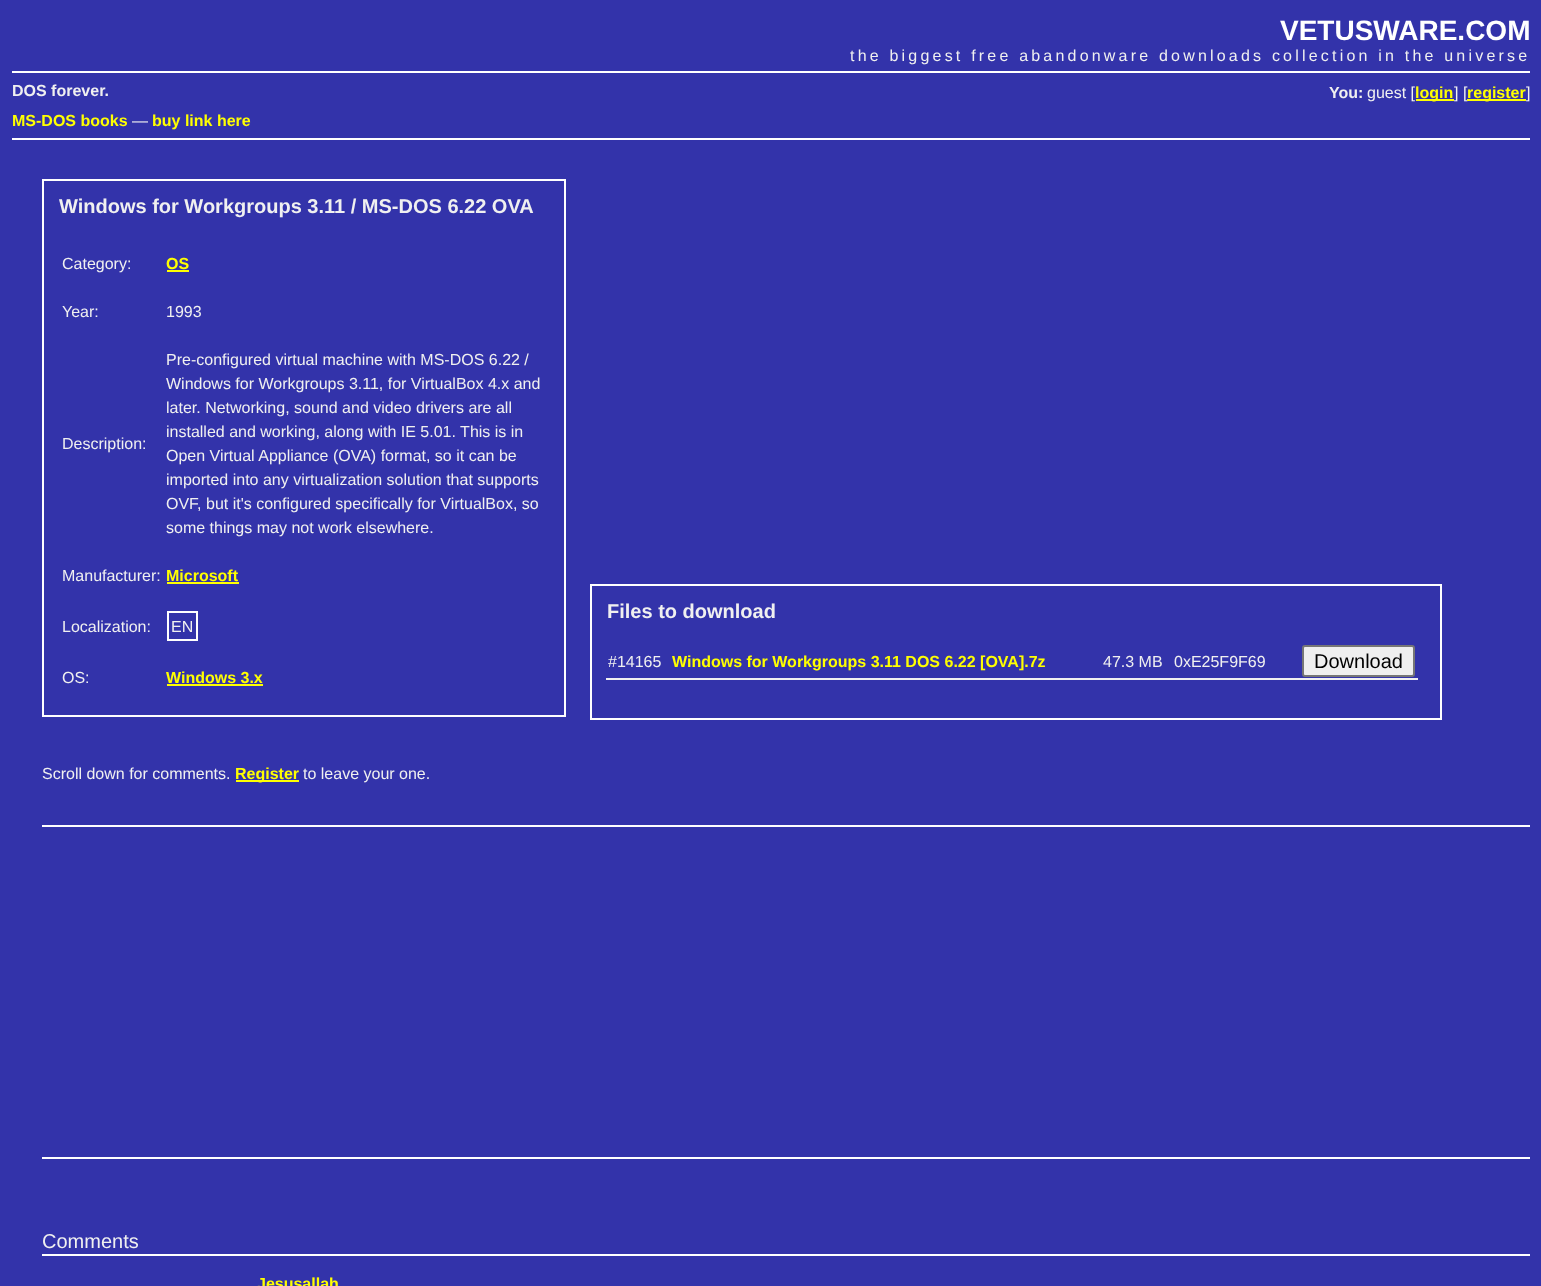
<svg xmlns="http://www.w3.org/2000/svg" width="1541" height="1286">
<rect width="100%" height="100%" fill="#33a"/>
<rect x="12" y="138" width="1518" height="2" fill="#fff"/>
<text x="1280" y="40" style="font-family:Liberation Sans;font-size:28px;font-weight:bold;fill:#fff">VETUSWARE.COM</text>
<rect x="12" y="71" width="1518" height="2" fill="#fff"/>
<text x="850" y="61" style="font-family:Liberation Sans;font-size:16px;letter-spacing:3.2px;fill:#f0f0f0">the biggest free abandonware downloads collection in the universe</text>
<text x="12" y="96" style="font-family:Liberation Sans;font-size:16px;font-weight:bold;fill:#f0f0f0">DOS forever.</text>
<text x="1329" y="98" style="font-family:Liberation Sans;font-size:16px;font-weight:bold;fill:#f0f0f0">You:</text>
<text x="1367" y="98" style="font-family:Liberation Sans;font-size:16px;fill:#f0f0f0">guest [</text>
<rect x="1416" y="99" width="38" height="2" fill="#ff0"/>
<text x="1415" y="98" style="font-family:Liberation Sans;font-size:16px;font-weight:bold;fill:#ff0">login</text>
<text x="1454" y="98" style="font-family:Liberation Sans;font-size:16px;fill:#f0f0f0">] [</text>
<rect x="1467" y="99" width="59" height="2" fill="#ff0"/>
<text x="1467" y="98" style="font-family:Liberation Sans;font-size:16px;font-weight:bold;fill:#ff0">register</text>
<text x="1526" y="98" style="font-family:Liberation Sans;font-size:16px;fill:#f0f0f0">]</text>
<text x="12" y="126" style="font-family:Liberation Sans;font-size:16px;font-weight:bold;fill:#ff0">MS-DOS books</text>
<text x="132" y="126" style="font-family:Liberation Sans;font-size:16px;fill:#f0f0f0">—</text>
<text x="152" y="126" style="font-family:Liberation Sans;font-size:16px;font-weight:bold;fill:#ff0">buy link here</text>
<rect x="43" y="180" width="522" height="536" fill="none" stroke="#fff" stroke-width="2"/>
<text x="59" y="213" style="font-family:Liberation Sans;font-size:20px;font-weight:bold;fill:#f0f0f0">Windows for Workgroups 3.11 / MS-DOS 6.22 OVA</text>
<text x="62" y="269" style="font-family:Liberation Sans;font-size:16px;fill:#f0f0f0">Category:</text>
<text x="166" y="269" style="font-family:Liberation Sans;font-size:16px;font-weight:bold;fill:#ff0">OS</text>
<rect x="167" y="270" width="22" height="2" fill="#ff0"/>
<text x="62" y="317" style="font-family:Liberation Sans;font-size:16px;fill:#f0f0f0">Year:</text>
<text x="166" y="317" style="font-family:Liberation Sans;font-size:16px;fill:#f0f0f0">1993</text>
<text x="62" y="449" style="font-family:Liberation Sans;font-size:16px;fill:#f0f0f0">Description:</text>
<text x="166" y="365" style="font-family:Liberation Sans;font-size:16px;fill:#f0f0f0">Pre-configured virtual machine with MS-DOS 6.22 /</text>
<text x="166" y="389" style="font-family:Liberation Sans;font-size:16px;fill:#f0f0f0">Windows for Workgroups 3.11, for VirtualBox 4.x and</text>
<text x="166" y="413" style="font-family:Liberation Sans;font-size:16px;fill:#f0f0f0">later. Networking, sound and video drivers are all</text>
<text x="166" y="437" style="font-family:Liberation Sans;font-size:16px;fill:#f0f0f0">installed and working, along with IE 5.01. This is in</text>
<text x="166" y="461" style="font-family:Liberation Sans;font-size:16px;fill:#f0f0f0">Open Virtual Appliance (OVA) format, so it can be</text>
<text x="166" y="485" style="font-family:Liberation Sans;font-size:16px;fill:#f0f0f0">imported into any virtualization solution that supports</text>
<text x="166" y="509" style="font-family:Liberation Sans;font-size:16px;fill:#f0f0f0">OVF, but it's configured specifically for VirtualBox, so</text>
<text x="166" y="533" style="font-family:Liberation Sans;font-size:16px;fill:#f0f0f0">some things may not work elsewhere.</text>
<text x="62" y="581" style="font-family:Liberation Sans;font-size:16px;fill:#f0f0f0">Manufacturer:</text>
<text x="166" y="581" style="font-family:Liberation Sans;font-size:16px;font-weight:bold;fill:#ff0">Microsoft</text>
<rect x="167" y="582" width="72" height="2" fill="#ff0"/>
<text x="62" y="632" style="font-family:Liberation Sans;font-size:16px;fill:#f0f0f0">Localization:</text>
<rect x="168" y="612" width="29" height="28" fill="none" stroke="#fff" stroke-width="2"/>
<text x="171" y="632" style="font-family:Liberation Sans;font-size:16px;fill:#f0f0f0">EN</text>
<text x="62" y="683" style="font-family:Liberation Sans;font-size:16px;fill:#f0f0f0">OS:</text>
<text x="166" y="683" style="font-family:Liberation Sans;font-size:16px;font-weight:bold;fill:#ff0">Windows 3.x</text>
<rect x="167" y="684" width="96" height="2" fill="#ff0"/>
<rect x="591" y="585" width="850" height="134" fill="none" stroke="#fff" stroke-width="2"/>
<text x="607" y="618" style="font-family:Liberation Sans;font-size:20px;font-weight:bold;fill:#f0f0f0">Files to download</text>
<text x="608" y="667" style="font-family:Liberation Sans;font-size:16px;fill:#f0f0f0">#14165</text>
<text x="672" y="667" style="font-family:Liberation Sans;font-size:16px;font-weight:bold;fill:#ff0">Windows for Workgroups 3.11 DOS 6.22 [OVA].7z</text>
<text x="1103" y="667" style="font-family:Liberation Sans;font-size:16px;fill:#f0f0f0">47.3 MB</text>
<text x="1174" y="667" style="font-family:Liberation Sans;font-size:16px;fill:#f0f0f0">0xE25F9F69</text>
<rect x="606" y="678" width="812" height="2" fill="#f0f0f0"/>
<rect x="1303" y="646" width="111" height="30" rx="2" fill="#efefef" stroke="#767676" stroke-width="2"/>
<text x="1314" y="668" style="font-family:Liberation Sans;font-size:20px;fill:#000">Download</text>
<text x="42" y="779" style="font-family:Liberation Sans;font-size:16px;fill:#f0f0f0">Scroll down for comments.</text>
<rect x="236" y="780" width="63" height="2" fill="#ff0"/>
<text x="235" y="779" style="font-family:Liberation Sans;font-size:16px;font-weight:bold;fill:#ff0">Register</text>
<text x="303" y="779" style="font-family:Liberation Sans;font-size:16px;fill:#f0f0f0">to leave your one.</text>
<rect x="42" y="825" width="1488" height="2" fill="#fff"/>
<rect x="42" y="1157" width="1488" height="2" fill="#fff"/>
<rect x="42" y="1254" width="1488" height="2" fill="#fff"/>
<text x="42" y="1248" style="font-family:Liberation Sans;font-size:20px;fill:#f0f0f0">Comments</text>
<text x="257" y="1289" style="font-family:Liberation Sans;font-size:16px;font-weight:bold;fill:#ff0">Jesusallah</text>
</svg>
